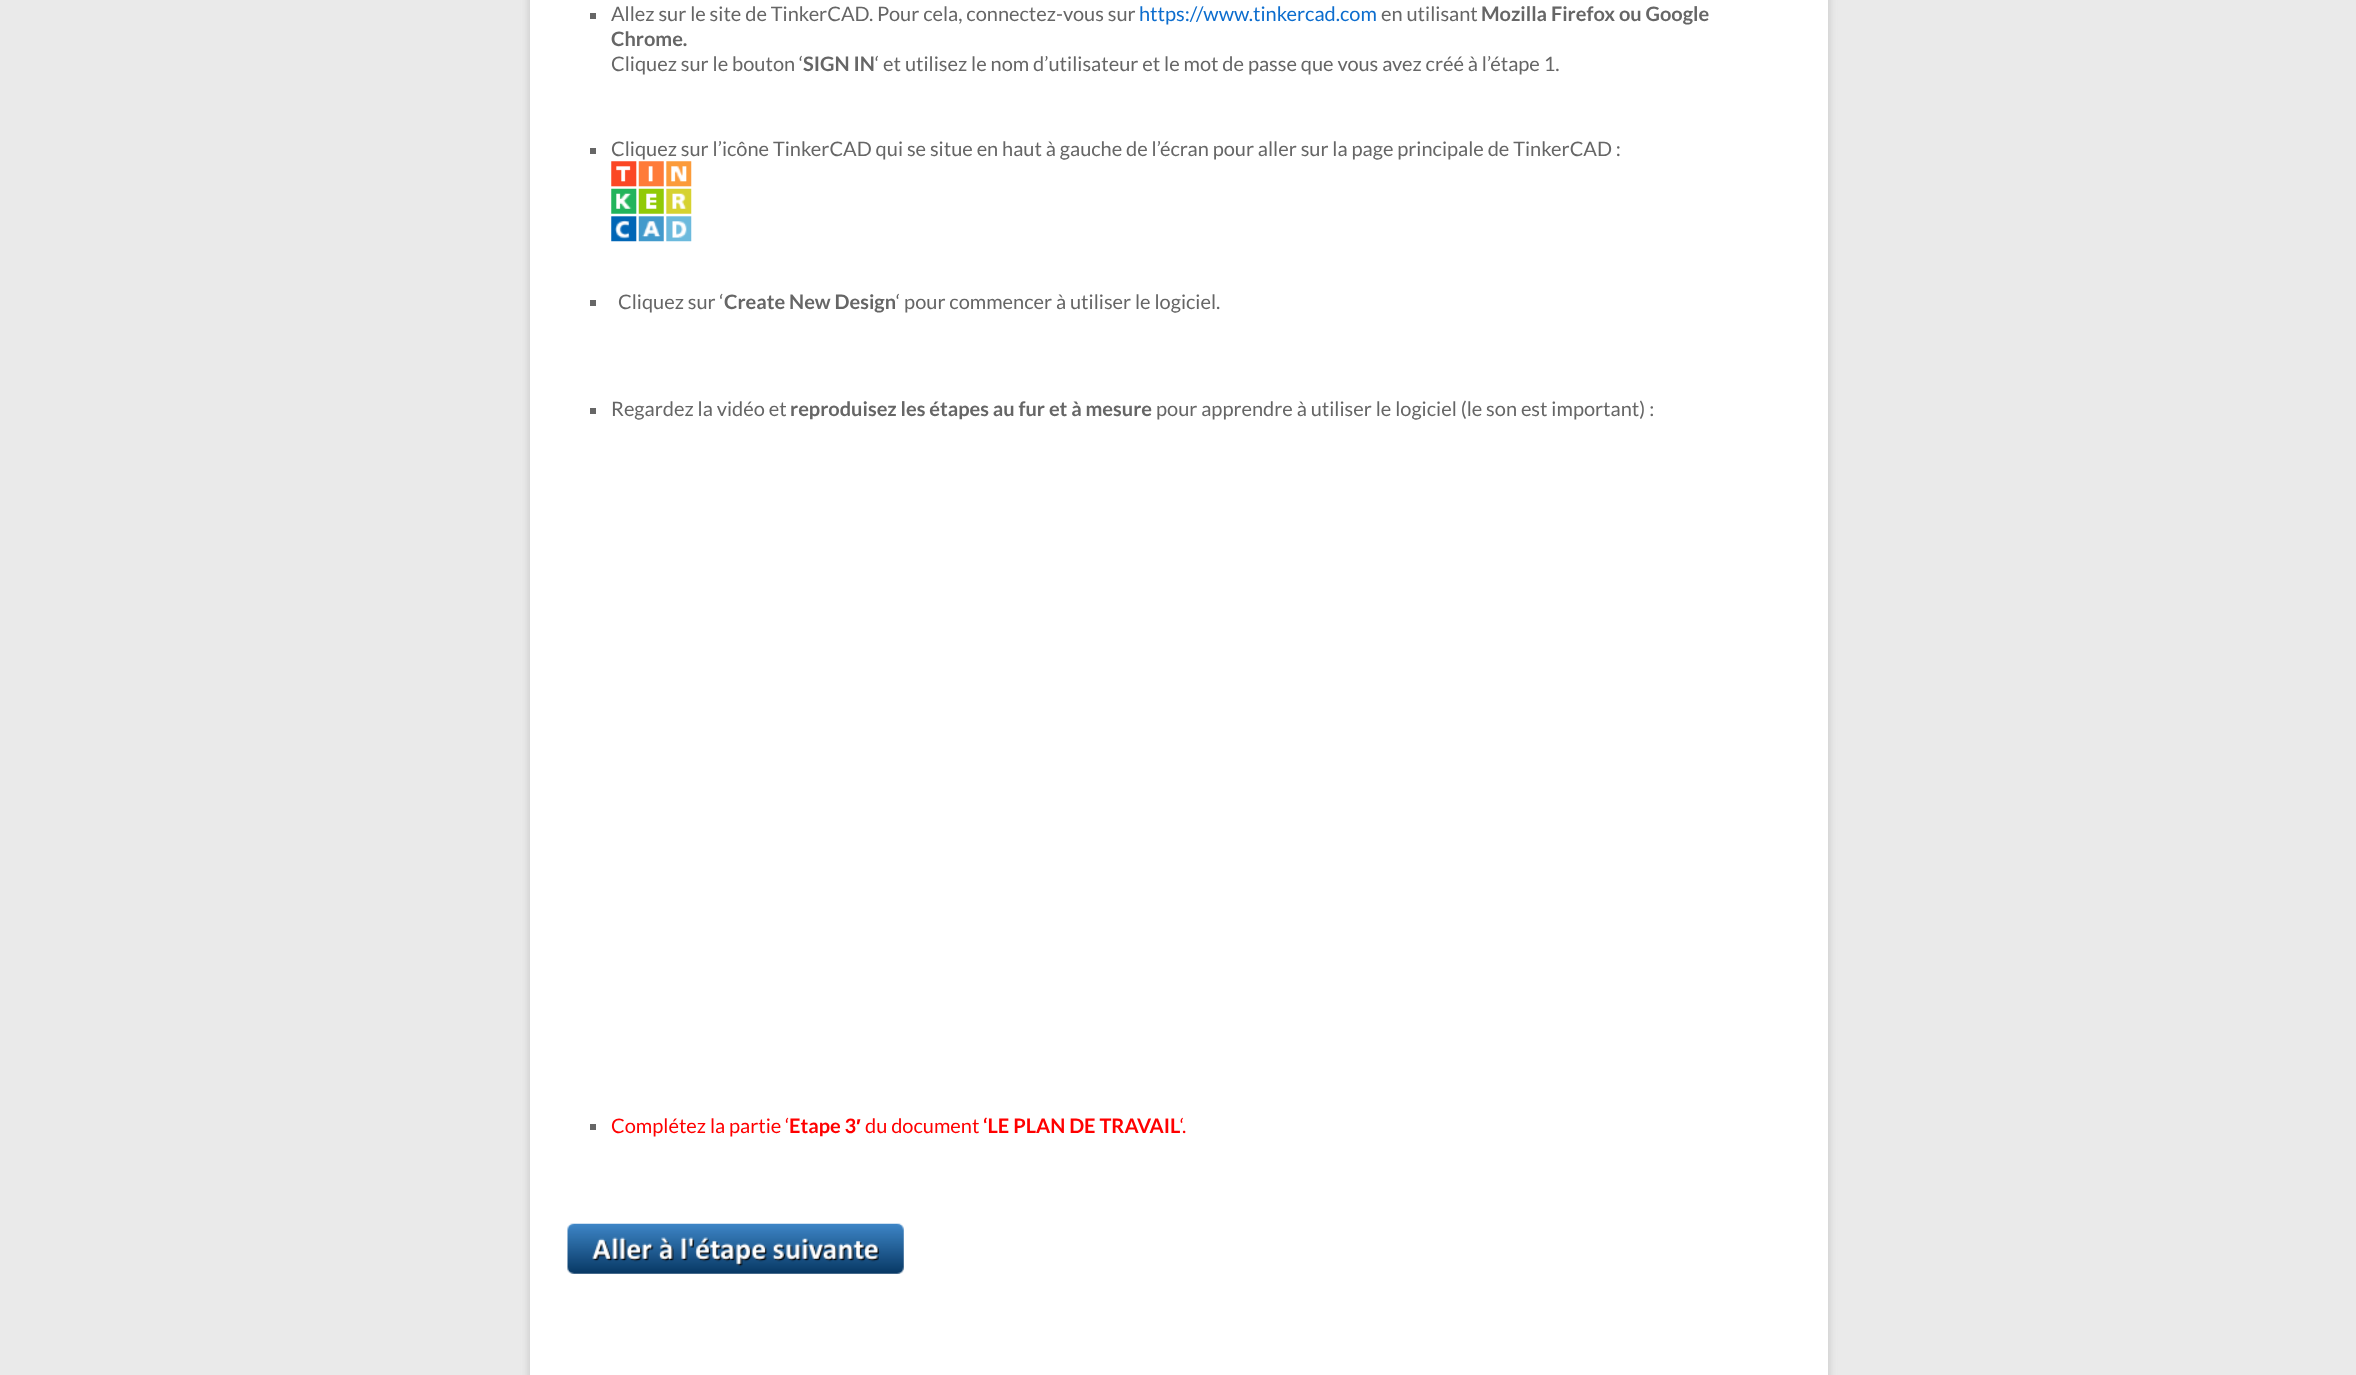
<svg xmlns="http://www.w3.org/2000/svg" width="2356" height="1375">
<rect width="100%" height="100%" fill="#eaeaea"/>
<rect x="530" y="-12" width="1298" height="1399" fill="#6464644d" filter="blur(4px)"/>
<rect x="530" width="1298" height="1375" fill="#fff"/>
<rect x="590" y="13" width="6" height="6" fill="#666"/>
<text x="611" y="21" style="font-family:Lato;font-size:20px;fill:#666">Allez sur le site de TinkerCAD. Pour cela, connectez-vous sur</text>
<text x="1139" y="21" style="font-family:Lato;font-size:20px;fill:#0c6dce">https://www.tinkercad.com</text>
<text x="1381" y="21" style="font-family:Lato;font-size:20px;fill:#666">en utilisant</text>
<text x="1481" y="21" style="font-family:Lato;font-size:20px;font-weight:bold;fill:#666">Mozilla Firefox ou Google</text>
<text x="611" y="46" style="font-family:Lato;font-size:20px;font-weight:bold;fill:#666">Chrome.</text>
<text x="611" y="71" style="font-family:Lato;font-size:20px;fill:#666">Cliquez sur le bouton ‘</text>
<text x="803" y="71" style="font-family:Lato;font-size:20px;font-weight:bold;fill:#666">SIGN IN</text>
<text x="875" y="71" style="font-family:Lato;font-size:20px;fill:#666">‘ et utilisez le nom d’utilisateur et le mot de passe que vous avez créé à l’étape 1.</text>
<rect x="590" y="148" width="6" height="6" fill="#666"/>
<text x="611" y="156" style="font-family:Lato;font-size:20px;fill:#666">Cliquez sur l’icône TinkerCAD qui se situe en haut à gauche de l’écran pour aller sur la page principale de TinkerCAD :</text>
<image x="611" y="161" width="81" height="81" href="media/1.png"/>
<rect x="590" y="300" width="6" height="6" fill="#666"/>
<text x="618" y="309" style="font-family:Lato;font-size:20px;fill:#666">Cliquez sur ‘</text>
<text x="724" y="309" style="font-family:Lato;font-size:20px;font-weight:bold;fill:#666">Create New Design</text>
<text x="896" y="309" style="font-family:Lato;font-size:20px;fill:#666">‘ pour commencer à utiliser le logiciel.</text>
<rect x="590" y="408" width="6" height="6" fill="#666"/>
<text x="611" y="416" style="font-family:Lato;font-size:20px;fill:#666">Regardez la vidéo et</text>
<text x="790" y="416" style="font-family:Lato;font-size:20px;font-weight:bold;fill:#666">reproduisez les étapes au fur et à mesure</text>
<text x="1156" y="416" style="font-family:Lato;font-size:20px;fill:#666">pour apprendre à utiliser le logiciel (le son est important) :</text>
<text x="611" y="1133" style="font-family:Lato;font-size:20px;fill:#f00">Complétez la partie ‘</text>
<text x="789" y="1133" style="font-family:Lato;font-size:20px;font-weight:bold;fill:#f00">Etape 3</text>
<text x="856" y="1133" style="font-family:Liberation Sans;font-size:20px;font-weight:bold;fill:#f00">′</text>
<text x="865" y="1133" style="font-family:Lato;font-size:20px;fill:#f00">du document</text>
<text x="983" y="1133" style="font-family:Lato;font-size:20px;font-weight:bold;fill:#f00">‘LE PLAN DE TRAVAIL</text>
<text x="1180" y="1133" style="font-family:Lato;font-size:20px;fill:#f00">‘.</text>
<rect x="590" y="1124" width="6" height="6" fill="#666"/>
<image x="567" y="1223" width="337" height="51" href="media/2.png"/>
</svg>
